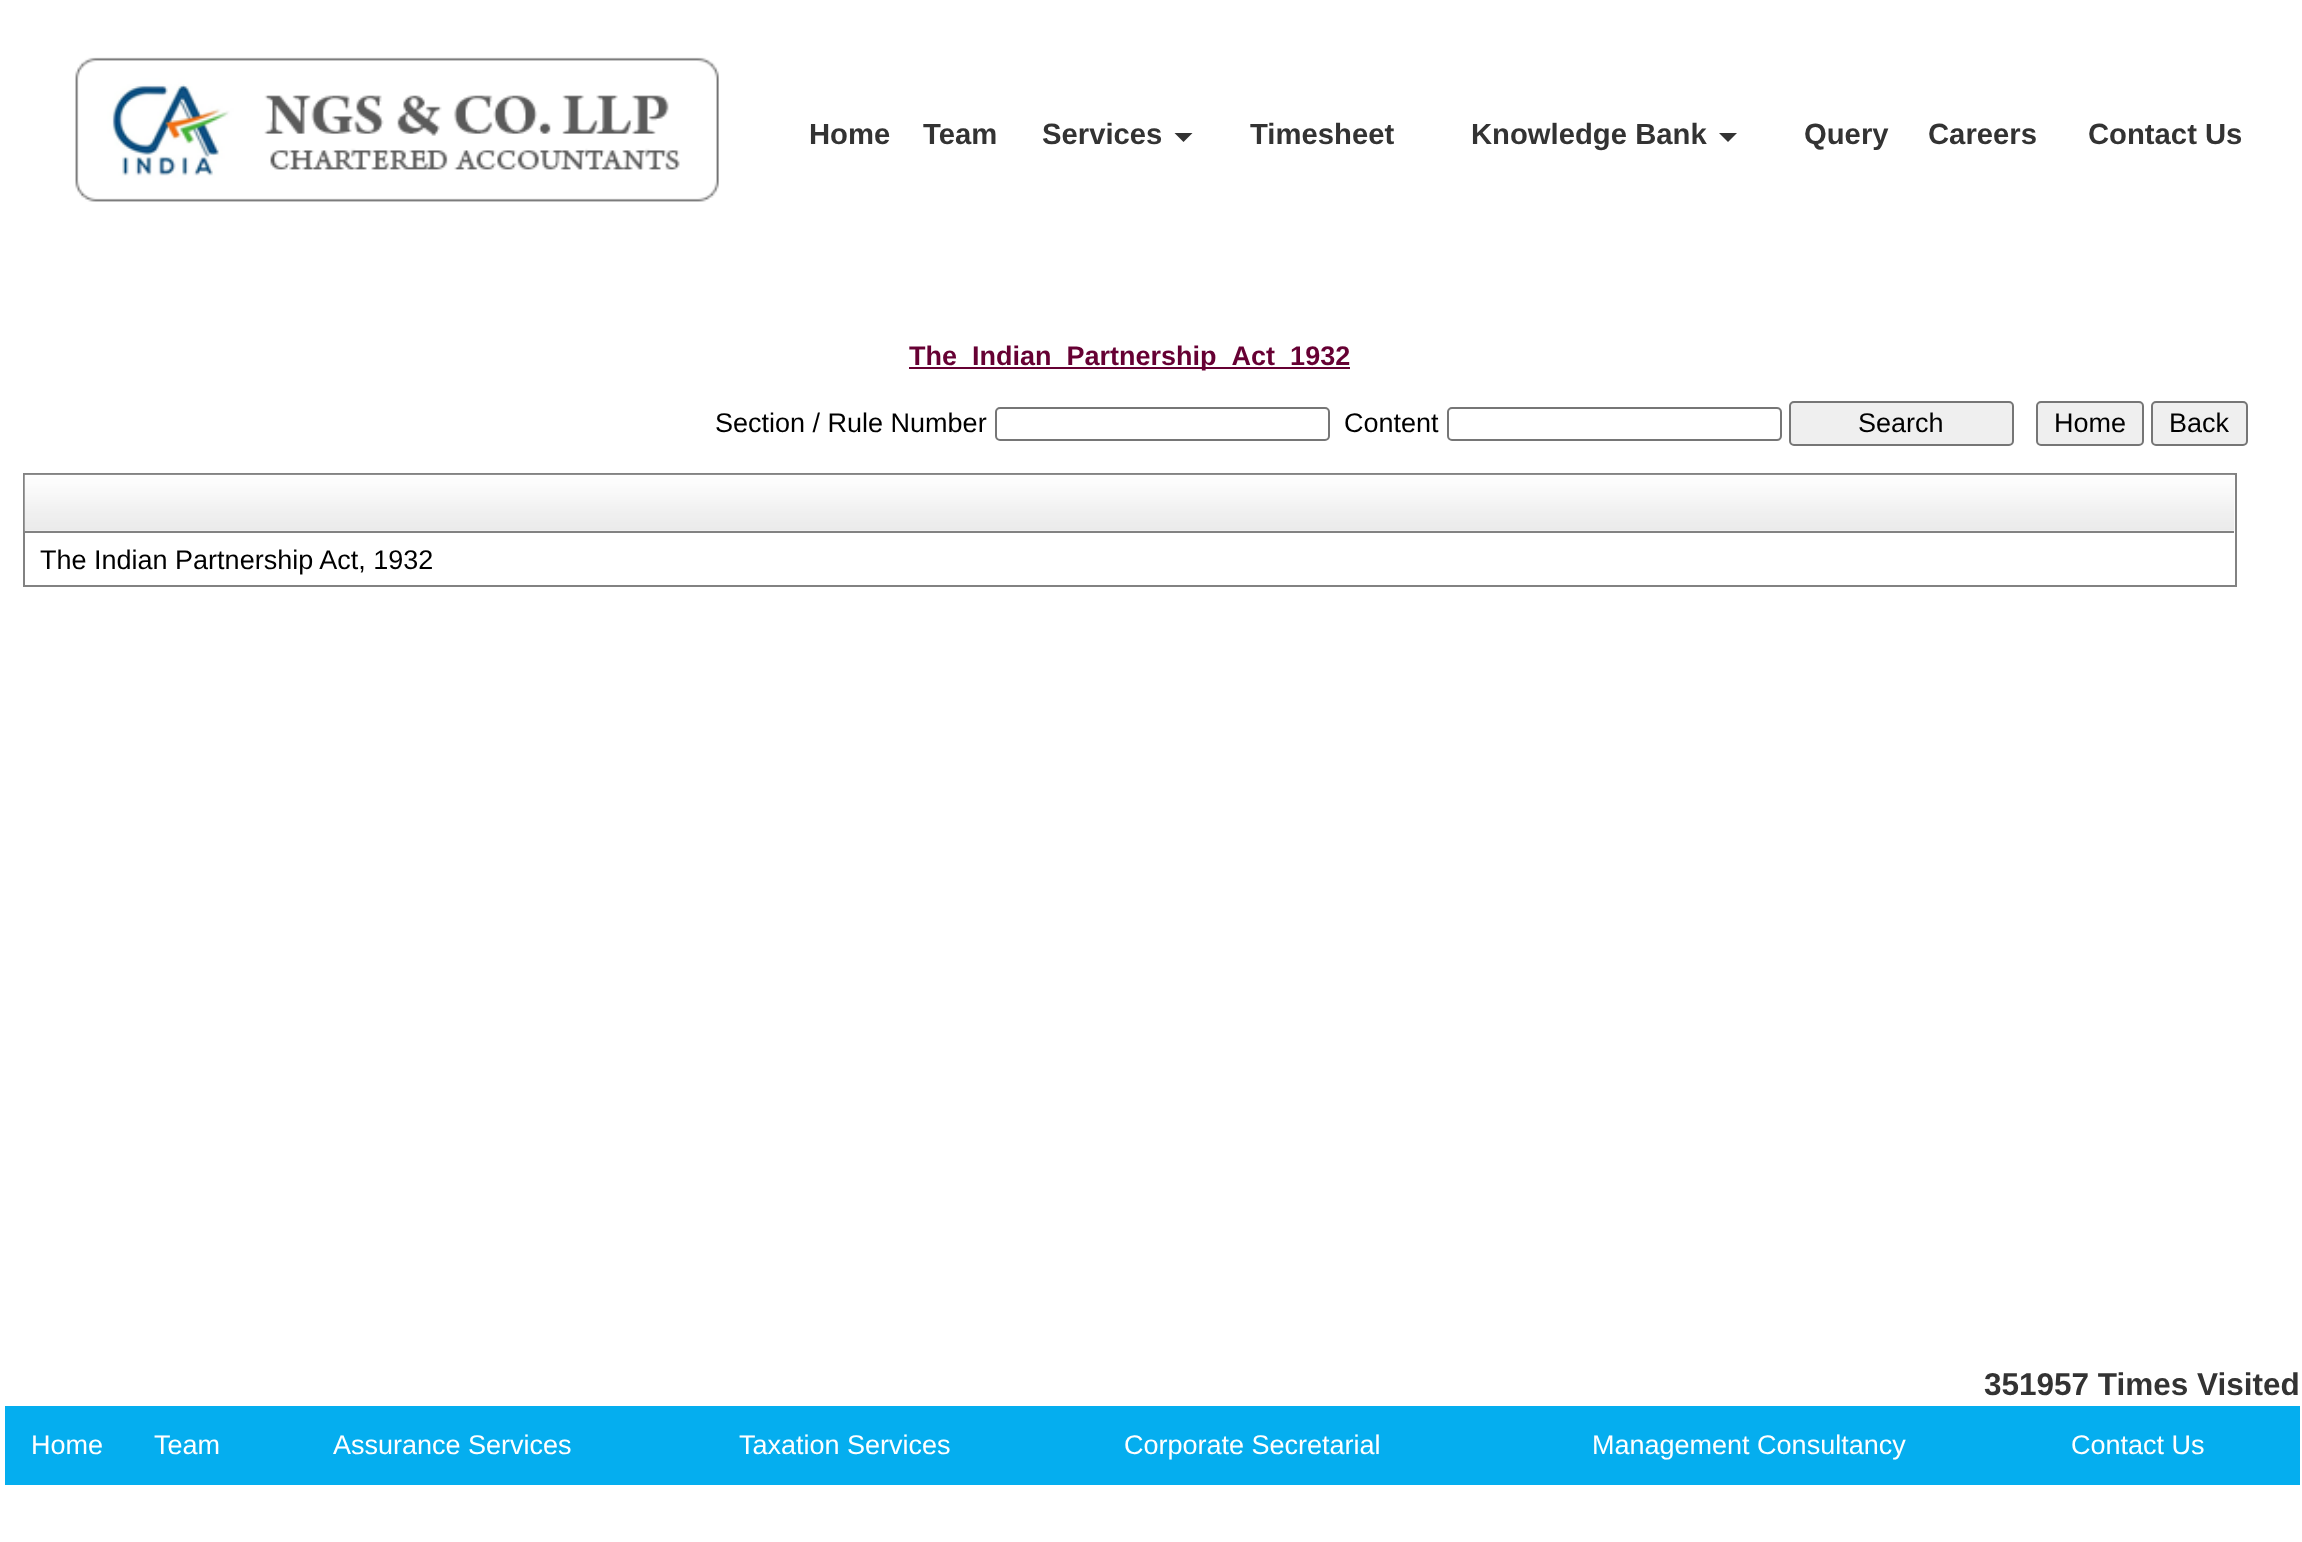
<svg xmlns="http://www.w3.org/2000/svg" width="2302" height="1542">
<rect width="100%" height="100%" fill="#fff"/>
<image x="75" y="57" width="644" height="145" href="media/1.png"/>
<text x="809" y="144" style="font-family:Liberation Sans;font-size:29.25px;font-weight:bold;fill:#333">Home</text>
<text x="923" y="144" style="font-family:Liberation Sans;font-size:29.25px;font-weight:bold;fill:#333">Team</text>
<text x="1042" y="144" style="font-family:Liberation Sans;font-size:29.25px;font-weight:bold;fill:#333">Services</text>
<path d="M1174.5 133h18l-9 9z" fill="#333"/>
<text x="1250" y="144" style="font-family:Liberation Sans;font-size:29.25px;font-weight:bold;fill:#333">Timesheet</text>
<text x="1471" y="144" style="font-family:Liberation Sans;font-size:29.25px;font-weight:bold;fill:#333">Knowledge Bank</text>
<path d="M1719 133h18l-9 9z" fill="#333"/>
<text x="1804" y="144" style="font-family:Liberation Sans;font-size:29.25px;font-weight:bold;fill:#333">Query</text>
<text x="1928" y="144" style="font-family:Liberation Sans;font-size:29.25px;font-weight:bold;fill:#333">Careers</text>
<text x="2088" y="144" style="font-family:Liberation Sans;font-size:29.25px;font-weight:bold;fill:#333">Contact Us</text>
<rect x="909" y="367" width="441" height="2" fill="#603"/>
<text x="909" y="365" style="font-family:Liberation Sans;font-size:27px;font-weight:bold;fill:#603">The_Indian_Partnership_Act_1932</text>
<text x="715" y="432" style="font-family:Liberation Sans;font-size:27px;fill:#000">Section / Rule Number</text>
<rect x="996" y="408" width="333" height="32" rx="4" fill="none" stroke="#767676" stroke-width="2"/>
<text x="1344" y="432" style="font-family:Liberation Sans;font-size:27px;fill:#000">Content</text>
<rect x="1448" y="408" width="333" height="32" rx="4" fill="none" stroke="#767676" stroke-width="2"/>
<rect x="1790" y="402" width="223" height="43" rx="4" fill="#efefef" stroke="#767676" stroke-width="2"/>
<text x="1858" y="432" style="font-family:Liberation Sans;font-size:27px;fill:#000">Search</text>
<rect x="2037" y="402" width="106" height="43" rx="4" fill="#efefef" stroke="#767676" stroke-width="2"/>
<text x="2054" y="432" style="font-family:Liberation Sans;font-size:27px;fill:#000">Home</text>
<rect x="2152" y="402" width="95" height="43" rx="4" fill="#efefef" stroke="#767676" stroke-width="2"/>
<text x="2169" y="432" style="font-family:Liberation Sans;font-size:27px;fill:#000">Back</text>
<rect x="24" y="474" width="2212" height="112" fill="none" stroke="#828282" stroke-width="2"/>
<image x="24" y="474" width="2211" height="58" href="media/2.png"/>
<rect x="25" y="531" width="2209" height="2" fill="#828282"/>
<text x="40" y="569" style="font-family:Liberation Sans;font-size:27px;fill:#000">The Indian Partnership Act, 1932</text>
<text x="1984" y="1395" style="font-family:Liberation Sans;font-size:31.5px;font-weight:bold;fill:#333">351957 Times Visited</text>
<rect x="5" y="1406" width="2295" height="79" fill="#05aeef"/>
<text x="31" y="1454" style="font-family:Liberation Sans;font-size:27px;fill:#fff">Home</text>
<text x="154" y="1454" style="font-family:Liberation Sans;font-size:27px;fill:#fff">Team</text>
<text x="333" y="1454" style="font-family:Liberation Sans;font-size:27px;fill:#fff">Assurance Services</text>
<text x="739" y="1454" style="font-family:Liberation Sans;font-size:27px;fill:#fff">Taxation Services</text>
<text x="1124" y="1454" style="font-family:Liberation Sans;font-size:27px;fill:#fff">Corporate Secretarial</text>
<text x="1592" y="1454" style="font-family:Liberation Sans;font-size:27px;fill:#fff">Management Consultancy</text>
<text x="2071" y="1454" style="font-family:Liberation Sans;font-size:27px;fill:#fff">Contact Us</text>
</svg>
